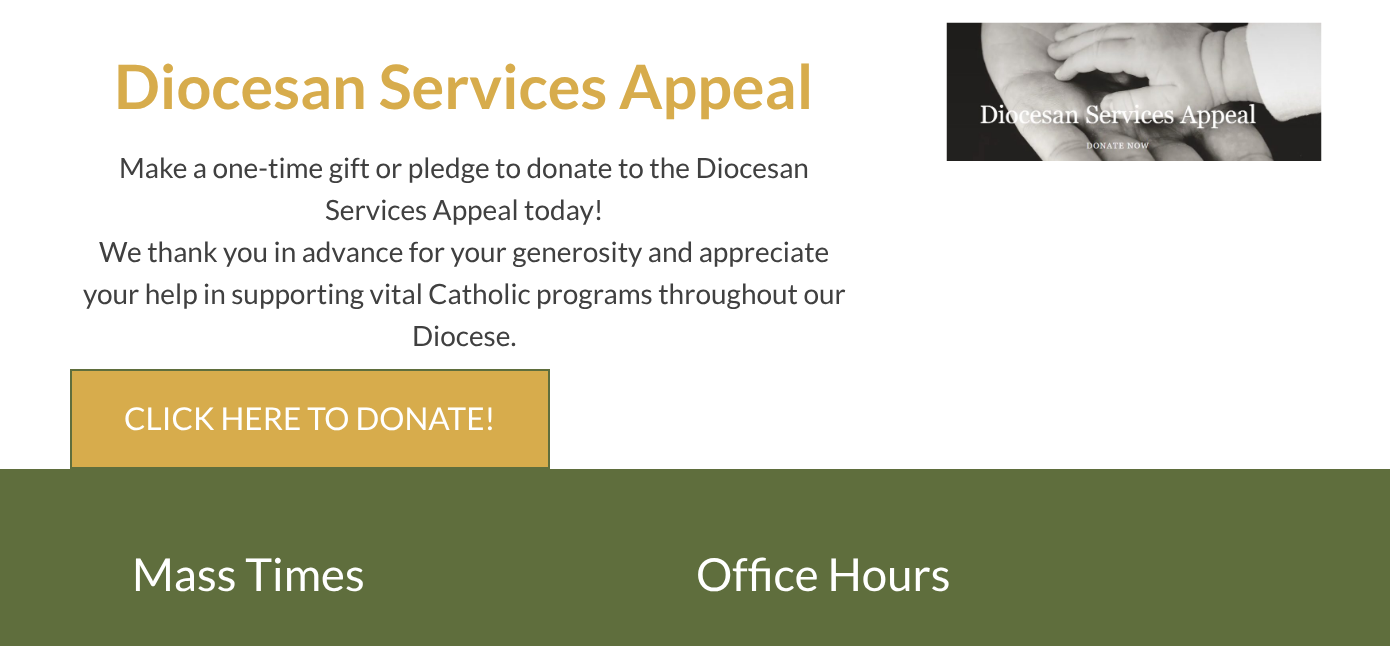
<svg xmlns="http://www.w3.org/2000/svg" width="1390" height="646">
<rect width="100%" height="100%" fill="#fff"/>
<text x="114" y="109" style="font-family:Lato;font-size:61.25px;font-weight:bold;fill:#d7ac4c">Diocesan Services Appeal</text>
<text x="119" y="178" style="font-family:Lato;font-size:28px;fill:#404040">Make a one-time gift or pledge to donate to the Diocesan</text>
<text x="325" y="220" style="font-family:Lato;font-size:28px;fill:#404040">Services Appeal today!</text>
<text x="99" y="262" style="font-family:Lato;font-size:28px;fill:#404040">We thank you in advance for your generosity and appreciate</text>
<text x="83" y="304" style="font-family:Lato;font-size:28px;fill:#404040">your help in supporting vital Catholic programs throughout our</text>
<text x="412" y="346" style="font-family:Lato;font-size:28px;fill:#404040">Diocese.</text>
<image x="946" y="22" width="376" height="139" href="media/1.png"/>
<rect x="71" y="370" width="478" height="98" fill="#d7ac4c" stroke="#5f6e3d" stroke-width="2"/>
<text x="124" y="430" style="font-family:Lato;font-size:31.5px;fill:#fff">CLICK HERE TO DONATE!</text>
<rect y="469" width="1390" height="177" fill="#5f6e3d"/>
<text x="132" y="591" style="font-family:Lato;font-size:45.5px;fill:#fff">Mass Times</text>
<text x="696" y="591" style="font-family:Lato;font-size:45.5px;fill:#fff">Office Hours</text>
</svg>
